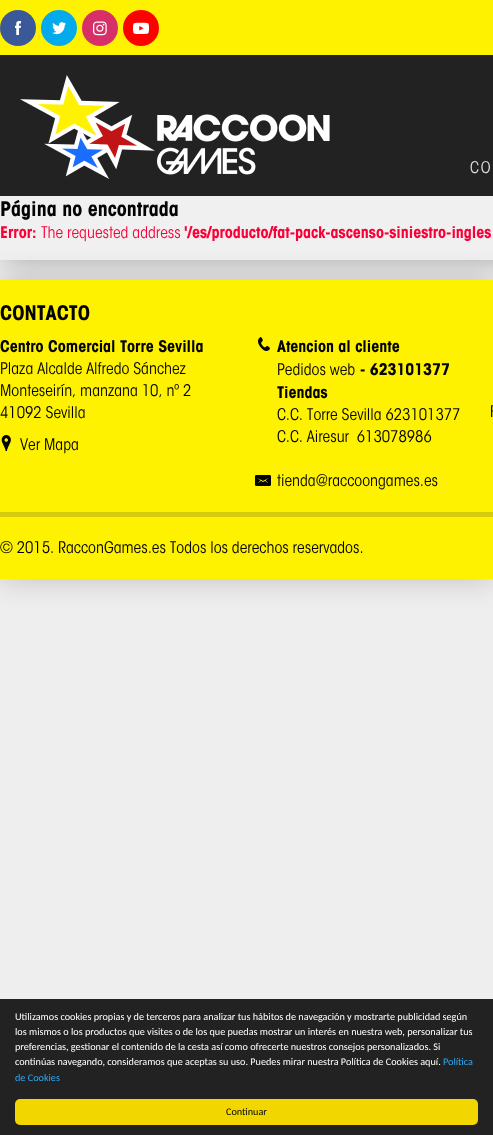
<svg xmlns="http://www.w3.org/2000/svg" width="493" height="1135">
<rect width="100%" height="100%" fill="#eee"/>
<rect x="5" y="60" width="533" height="195" fill="#00000066" filter="blur(15px)"/>
<rect width="493" height="55" fill="#fff200"/>
<circle cx="18" cy="28" r="18" fill="#3b5999"/>
<image x="15" y="21" width="6" height="14" href="media/1.png"/>
<circle cx="59" cy="28" r="18" fill="#03abec"/>
<image x="52" y="22" width="14" height="13" href="media/2.png"/>
<circle cx="100" cy="28" r="18" fill="#d73068"/>
<image x="93" y="21" width="14" height="15" href="media/3.png"/>
<circle cx="141" cy="28" r="18" fill="#f00"/>
<image x="133" y="22" width="16" height="12" href="media/4.png"/>
<rect y="196" width="493" height="64" fill="#f0f0f0"/>
<rect y="55" width="493" height="141" fill="#222"/>
<image x="20" y="75" width="310" height="104" href="media/5.png"/>
<text x="470" y="173" style="font-family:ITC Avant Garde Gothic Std;font-size:16px;font-weight:300;letter-spacing:2px;fill:#ddd">CO</text>
<text x="0" y="216" style="font-family:ITC Avant Garde Gothic Std;font-size:20px;font-weight:bold;fill:#030303">Página no encontrada</text>
<text x="0" y="238" style="font-family:ITC Avant Garde Gothic Std;font-size:16px;font-weight:bold;fill:#fb0038">Error:</text>
<text x="41" y="238" style="font-family:ITC Avant Garde Gothic Std;font-size:16px;font-weight:300;fill:#fb0038">The requested address</text>
<text x="184" y="238" style="font-family:ITC Avant Garde Gothic Std;font-size:16px;font-weight:bold;fill:#fb0038">'/es/producto/fat-pack-ascenso-siniestro-ingles</text>
<rect y="280" width="493" height="299" fill="#00000033" filter="blur(15px)"/>
<rect y="280" width="493" height="299" fill="#fff200"/>
<text x="0" y="320" style="font-family:ITC Avant Garde Gothic Std;font-size:20px;font-weight:bold;fill:#030303">CONTACTO</text>
<text x="0" y="352" style="font-family:ITC Avant Garde Gothic Std;font-size:16px;font-weight:bold;fill:#030303">Centro Comercial Torre Sevilla</text>
<text x="0" y="374" style="font-family:ITC Avant Garde Gothic Std;font-size:16px;font-weight:300;fill:#030303">Plaza Alcalde Alfredo Sánchez</text>
<text x="0" y="396" style="font-family:ITC Avant Garde Gothic Std;font-size:16px;font-weight:300;fill:#030303">Monteseirín, manzana 10, nº 2</text>
<text x="0" y="418" style="font-family:ITC Avant Garde Gothic Std;font-size:16px;font-weight:300;fill:#030303">41092 Sevilla</text>
<image x="1" y="435" width="10" height="16" href="media/6.png"/>
<text x="20" y="450" style="font-family:ITC Avant Garde Gothic Std;font-size:16px;font-weight:300;fill:#030303">Ver Mapa</text>
<image x="258" y="337" width="12" height="14" href="media/7.png"/>
<text x="277" y="352" style="font-family:ITC Avant Garde Gothic Std;font-size:16px;font-weight:bold;fill:#030303">Atencion al cliente</text>
<text x="277" y="375" style="font-family:ITC Avant Garde Gothic Std;font-size:16px;font-weight:300;fill:#030303">Pedidos web</text>
<text x="360" y="375" style="font-family:ITC Avant Garde Gothic Std;font-size:16px;font-weight:bold;fill:#030303">- 623101377</text>
<text x="277" y="398" style="font-family:ITC Avant Garde Gothic Std;font-size:16px;font-weight:bold;fill:#030303">Tiendas</text>
<text x="277" y="420" style="font-family:ITC Avant Garde Gothic Std;font-size:16px;font-weight:300;fill:#030303">C.C. Torre Sevilla 623101377</text>
<text x="277" y="442" style="font-family:ITC Avant Garde Gothic Std;font-size:16px;font-weight:300;fill:#030303" xml:space="preserve">C.C. Airesur  613078986</text>
<image x="255" y="475" width="16" height="11" href="media/8.png"/>
<text x="277" y="486" style="font-family:ITC Avant Garde Gothic Std;font-size:16px;font-weight:300;fill:#030303">tienda@raccoongames.es</text>
<text x="490" y="417" style="font-family:ITC Avant Garde Gothic Std;font-size:16px;font-weight:300;fill:#030303">F</text>
<rect y="512" width="493" height="5" fill="#d6cb0a"/>
<text x="0" y="553" style="font-family:ITC Avant Garde Gothic Std;font-size:16px;font-weight:300;fill:#030303">© 2015. RacconGames.es Todos los derechos reservados.</text>
<rect y="999" width="493" height="136" fill="#222"/>
<text x="15" y="1020" style="font-family:Carlito;font-size:10.2px;fill:#fff">Utilizamos cookies propias y de terceros para analizar tus hábitos de navegación y mostrarte publicidad según</text>
<text x="15" y="1035" style="font-family:Carlito;font-size:10.2px;fill:#fff">los mismos o los productos que visites o de los que puedas mostrar un interés en nuestra web, personalizar tus</text>
<text x="15" y="1050" style="font-family:Carlito;font-size:10.2px;fill:#fff">preferencias, gestionar el contenido de la cesta así como ofrecerte nuestros consejos personalizados. Si</text>
<text x="15" y="1065" style="font-family:Carlito;font-size:10.2px;fill:#fff">continúas navegando, consideramos que aceptas su uso. Puedes mirar nuestra Política de Cookies aquí.</text>
<text x="443" y="1065" style="font-family:Carlito;font-size:10.2px;fill:#31a8f0">Política</text>
<text x="15" y="1081" style="font-family:Carlito;font-size:10.2px;fill:#31a8f0">de Cookies</text>
<rect x="15" y="1099" width="463" height="26" rx="5" fill="#f1d600"/>
<text x="226" y="1115" style="font-family:Carlito;font-size:10.2px;fill:#030303">Continuar</text>
</svg>
